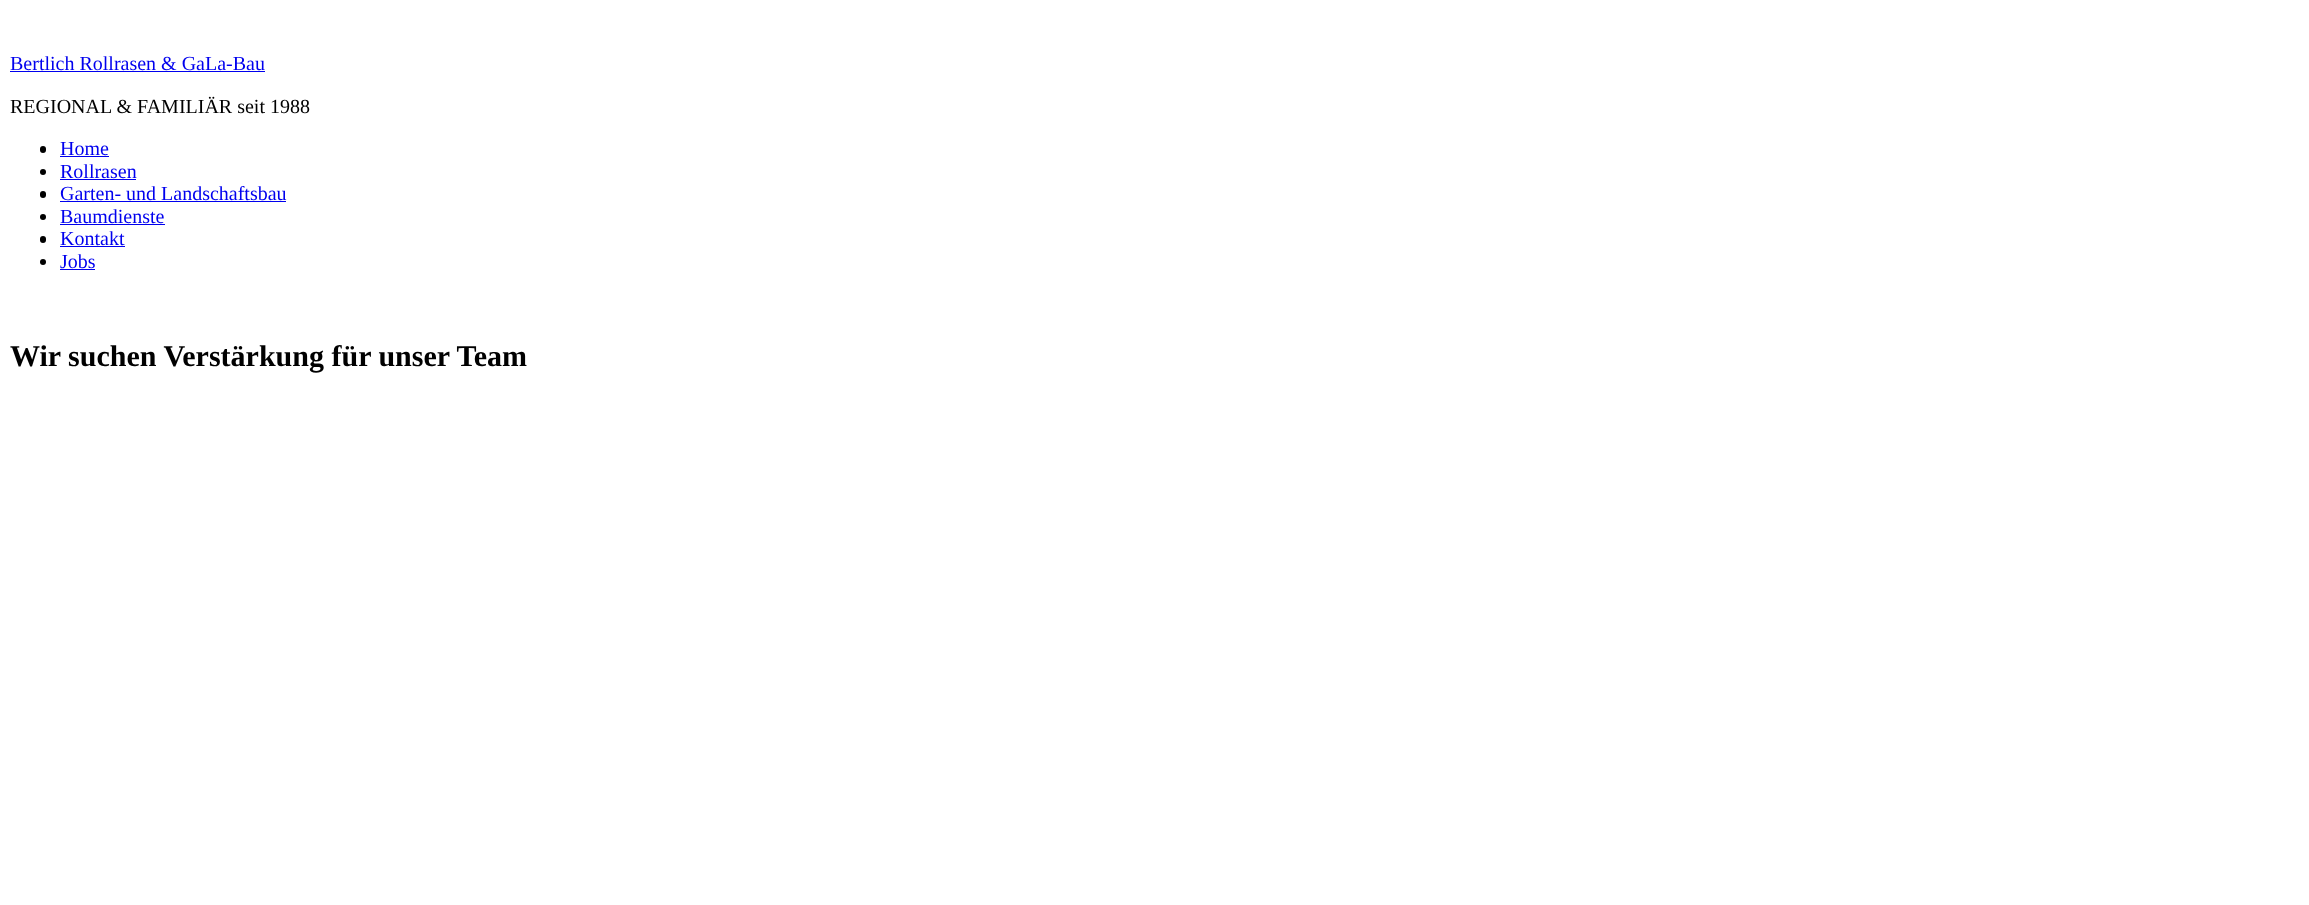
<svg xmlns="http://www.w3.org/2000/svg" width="2309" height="905">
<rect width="100%" height="100%" fill="#fff"/>
<text x="10" y="70" style="font-family:Liberation Serif;font-size:20px;fill:#00e">Bertlich Rollrasen &amp; GaLa-Bau</text>
<rect x="10" y="71" width="255" height="1" fill="#00e"/>
<text x="10" y="113" style="font-family:Liberation Serif;font-size:20px;fill:#000">REGIONAL &amp; FAMILIÄR seit 1988</text>
<rect x="40" y="146" width="6" height="7" rx="3" fill="#000"/>
<text x="60" y="155" style="font-family:Liberation Serif;font-size:20px;fill:#00e">Home</text>
<rect x="60" y="156" width="49" height="1" fill="#00e"/>
<circle cx="43" cy="172" r="3" fill="#000"/>
<text x="60" y="178" style="font-family:Liberation Serif;font-size:20px;fill:#00e">Rollrasen</text>
<rect x="60" y="179" width="76" height="1" fill="#00e"/>
<rect x="40" y="191" width="6" height="7" rx="3" fill="#000"/>
<text x="60" y="200" style="font-family:Liberation Serif;font-size:20px;fill:#00e">Garten- und Landschaftsbau</text>
<rect x="60" y="201" width="226" height="1" fill="#00e"/>
<circle cx="43" cy="217" r="3" fill="#000"/>
<text x="60" y="223" style="font-family:Liberation Serif;font-size:20px;fill:#00e">Baumdienste</text>
<rect x="60" y="224" width="105" height="1" fill="#00e"/>
<rect x="40" y="236" width="6" height="7" rx="3" fill="#000"/>
<text x="60" y="245" style="font-family:Liberation Serif;font-size:20px;fill:#00e">Kontakt</text>
<rect x="60" y="246" width="65" height="1" fill="#00e"/>
<circle cx="43" cy="262" r="3" fill="#000"/>
<text x="60" y="268" style="font-family:Liberation Serif;font-size:20px;fill:#00e">Jobs</text>
<rect x="60" y="269" width="35" height="1" fill="#00e"/>
<text x="10" y="366" style="font-family:Liberation Serif;font-size:30px;font-weight:bold;fill:#000">Wir suchen Verstärkung für unser Team</text>
</svg>
